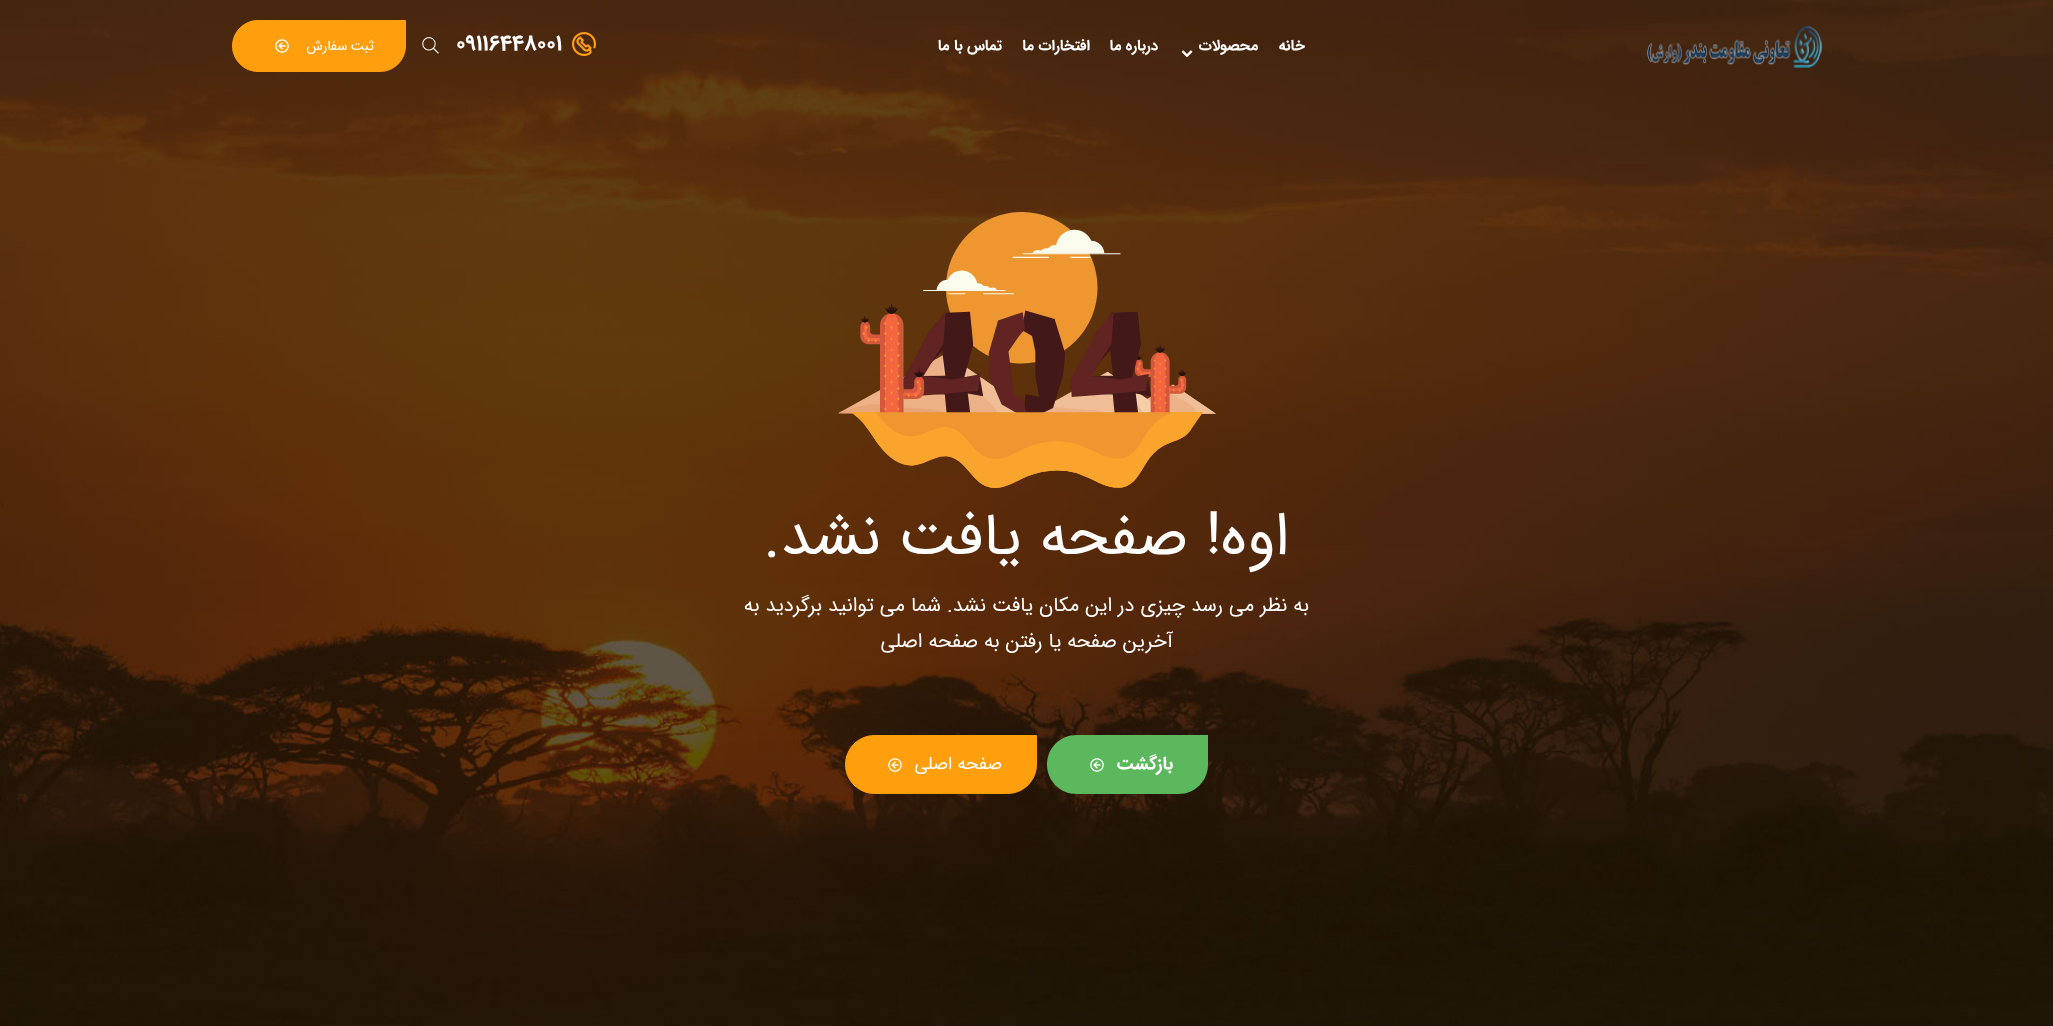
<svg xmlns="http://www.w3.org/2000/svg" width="2053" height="1026">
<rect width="100%" height="100%" fill="#fff"/>
<image x="0" y="0" width="2053" height="1026" href="media/6.png"/>
<image x="1647" y="26" width="175" height="42" href="media/1.png"/>
<text x="1305" y="50" style="font-family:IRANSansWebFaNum;font-size:15px;font-weight:bold;direction:rtl;fill:#fff">خانه</text>
<text x="1258" y="50" style="font-family:IRANSansWebFaNum;font-size:15px;font-weight:bold;direction:rtl;fill:#fff">محصولات</text>
<image x="1181" y="50" width="12" height="8" href="media/2.png"/>
<text x="1158" y="50" style="font-family:IRANSansWebFaNum;font-size:15px;font-weight:bold;direction:rtl;fill:#fff">درباره ما</text>
<text x="1090" y="50" style="font-family:IRANSansWebFaNum;font-size:15px;font-weight:bold;direction:rtl;fill:#fff">افتخارات ما</text>
<text x="1002" y="50" style="font-family:IRANSansWebFaNum;font-size:15px;font-weight:bold;direction:rtl;fill:#fff">تماس با ما</text>
<image x="572" y="32" width="24" height="24" href="media/3.png"/>
<text x="456" y="50" style="font-family:IRANSansWebFaNum;font-size:22px;font-weight:bold;fill:#fff">۰۹۱۱۶۴۴۸۰۰۱</text>
<image x="422" y="37" width="17" height="17" href="media/4.png"/>
<path d="M258 20.5h147.5v25.5c0 14-11.5 25.5-25.5 25.5h-122c-14 0-25.5-11.5-25.5-25.5c0-14 11.5-25.5 25.5-25.5z" fill="#ff9f0d" stroke="#ff9f0d"/>
<text x="374" y="50" word-spacing="-1" style="font-family:IRANSansWebFaNum;font-size:14px;letter-spacing:0.5px;direction:rtl;fill:#fff">ثبت سفارش</text>
<image x="275" y="39" width="14" height="14" href="media/5.png"/>
<image x="838" y="212" width="378" height="276" href="media/7.png"/>
<text x="1289" y="554" style="font-family:IRANSansWebFaNum;font-size:60px;direction:rtl;fill:#fff">اوه! صفحه یافت نشد.</text>
<text x="1309" y="611" style="font-family:IRANSansWebFaNum;font-size:20px;direction:rtl;fill:#fff">به نظر می رسد چیزی در این مکان یافت نشد. شما می توانید برگردید به</text>
<text x="1173" y="647" style="font-family:IRANSansWebFaNum;font-size:20px;direction:rtl;fill:#fff">آخرین صفحه یا رفتن به صفحه اصلی</text>
<path d="M1076.5 735h131.5v29.5c0 16.5-13 29.5-29.5 29.5h-102c-16.5 0-29.5-13-29.5-29.5c0-16.5 13-29.5 29.5-29.5z" fill="#5cb85c"/>
<text x="1173" y="769" style="font-family:IRANSansWebFaNum;font-size:18px;font-weight:bold;direction:rtl;fill:#fff">بازگشت</text>
<image x="1090" y="758" width="14" height="14" href="media/8.png"/>
<path d="M874.5 735.5h162v29c0 16-13 29-29 29h-133c-16 0-29-13-29-29c0-16 13-29 29-29z" fill="#ff9f0d" stroke="#ff9f0d"/>
<text x="1002" y="769" style="font-family:IRANSansWebFaNum;font-size:18px;direction:rtl;fill:#fff">صفحه اصلی</text>
<image x="888" y="758" width="14" height="14" href="media/5.png"/>
</svg>
